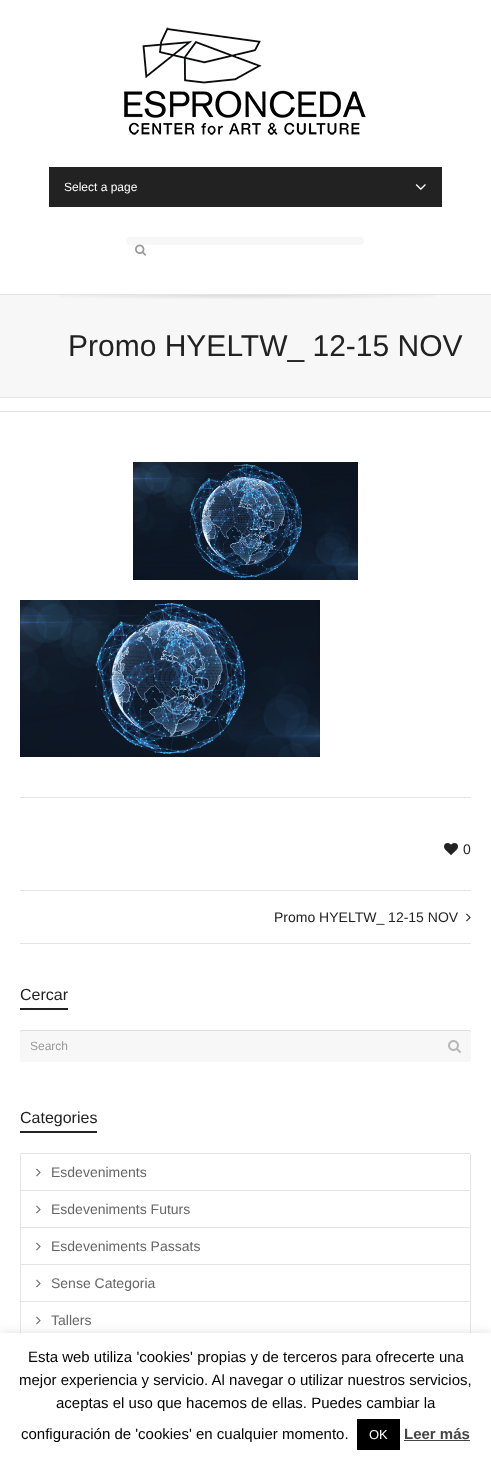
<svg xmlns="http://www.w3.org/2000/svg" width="491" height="1462">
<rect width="100%" height="100%" fill="#fff"/>
<rect y="294" width="491" height="1" fill="#e4e4e4"/>
<image x="124" y="27" width="242" height="108" href="media/1.png"/>
<rect x="49" y="167" width="393" height="40" fill="#222"/>
<text x="64" y="191" style="font-family:Liberation Sans;font-size:12px;fill:#fff">Select a page</text>
<image x="415" y="184" width="11" height="6" href="media/2.png"/>
<rect x="126" y="237" width="238" height="8" rx="4" fill="#f7f7f7"/>
<image x="135" y="244" width="12" height="12" href="media/3.png"/>
<rect y="295" width="491" height="102" fill="#f7f7f7"/>
<image x="58" y="295" width="376" height="4" href="media/4.png"/>
<rect y="397" width="491" height="1" fill="#e4e4e4"/>
<text x="68" y="356" style="font-family:Liberation Sans;font-size:30px;fill:#222">Promo HYELTW_ 12-15 NOV</text>
<rect y="411" width="491" height="1" fill="#e4e4e4"/>
<image x="133" y="462" width="225" height="118" href="media/5.png"/>
<image x="20" y="600" width="300" height="157" href="media/6.png"/>
<rect x="20" y="797" width="451" height="1" fill="#e4e4e4"/>
<image x="444" y="843" width="14" height="12" href="media/7.png"/>
<text x="463" y="854" style="font-family:Liberation Sans;font-size:14px;fill:#222">0</text>
<rect x="20" y="890" width="451" height="1" fill="#e4e4e4"/>
<rect x="20" y="943" width="451" height="1" fill="#e4e4e4"/>
<text x="274" y="922" style="font-family:Liberation Sans;font-size:14px;fill:#222">Promo HYELTW_ 12-15 NOV</text>
<image x="466" y="913" width="5" height="9" href="media/8.png"/>
<rect x="20" y="1008" width="48" height="2" fill="#222"/>
<text x="20" y="1000" style="font-family:Liberation Sans;font-size:16px;fill:#222">Cercar</text>
<rect x="20" y="1030" width="451" height="32" rx="2" fill="#f7f7f7"/>
<path d="M22 1031h447c1 0 2 1 2 2c0-1 0-3-2-3h-447c-2 0-2 2-2 3c0-1 1-2 2-2z" fill="#dedede"/>
<text x="30" y="1050" style="font-family:Liberation Sans;font-size:12px;fill:#999">Search</text>
<image x="448" y="1040" width="13" height="13" href="media/9.png"/>
<rect x="20" y="1131" width="77" height="2" fill="#222"/>
<text x="20" y="1123" style="font-family:Liberation Sans;font-size:16px;fill:#222">Categories</text>
<rect x="20.5" y="1153.5" width="450" height="259" rx="1.5" fill="none" stroke="#e4e4e4"/>
<image x="36" y="1168" width="5" height="9" href="media/10.png"/>
<text x="51" y="1177" style="font-family:Liberation Sans;font-size:14px;fill:#666">Esdeveniments</text>
<rect x="21" y="1190" width="449" height="1" fill="#e4e4e4"/>
<image x="36" y="1205" width="5" height="9" href="media/10.png"/>
<text x="51" y="1214" style="font-family:Liberation Sans;font-size:14px;fill:#666">Esdeveniments Futurs</text>
<rect x="21" y="1227" width="449" height="1" fill="#e4e4e4"/>
<image x="36" y="1242" width="5" height="9" href="media/10.png"/>
<text x="51" y="1251" style="font-family:Liberation Sans;font-size:14px;fill:#666">Esdeveniments Passats</text>
<rect x="21" y="1264" width="449" height="1" fill="#e4e4e4"/>
<image x="36" y="1279" width="5" height="9" href="media/10.png"/>
<text x="51" y="1288" style="font-family:Liberation Sans;font-size:14px;fill:#666">Sense Categoria</text>
<rect x="21" y="1301" width="449" height="1" fill="#e4e4e4"/>
<image x="36" y="1316" width="5" height="9" href="media/10.png"/>
<text x="51" y="1325" style="font-family:Liberation Sans;font-size:14px;fill:#666">Tallers</text>
<rect y="1332" width="491" height="129" fill="#acabab4d" filter="blur(5px)"/>
<rect y="1333" width="491" height="129" fill="#fff"/>
<text x="28" y="1362" style="font-family:Liberation Sans;font-size:15px;fill:#000">Esta web utiliza 'cookies' propias y de terceros para ofrecerte una</text>
<text x="19" y="1385" style="font-family:Liberation Sans;font-size:15px;fill:#000">mejor experiencia y servicio. Al navegar o utilizar nuestros servicios,</text>
<text x="56" y="1408" style="font-family:Liberation Sans;font-size:15px;fill:#000">aceptas el uso que hacemos de ellas. Puedes cambiar la</text>
<text x="21" y="1439" style="font-family:Liberation Sans;font-size:15px;fill:#000">configuración de 'cookies' en cualquier momento.</text>
<rect x="357" y="1419" width="43" height="31" fill="#000"/>
<text x="369" y="1439" style="font-family:Liberation Sans;font-size:13px;fill:#fff">OK</text>
<text x="404" y="1439" style="font-family:Liberation Sans;font-size:15px;font-weight:bold;fill:#444">Leer más</text>
<rect x="404" y="1440" width="66" height="1" fill="#444"/>
</svg>
